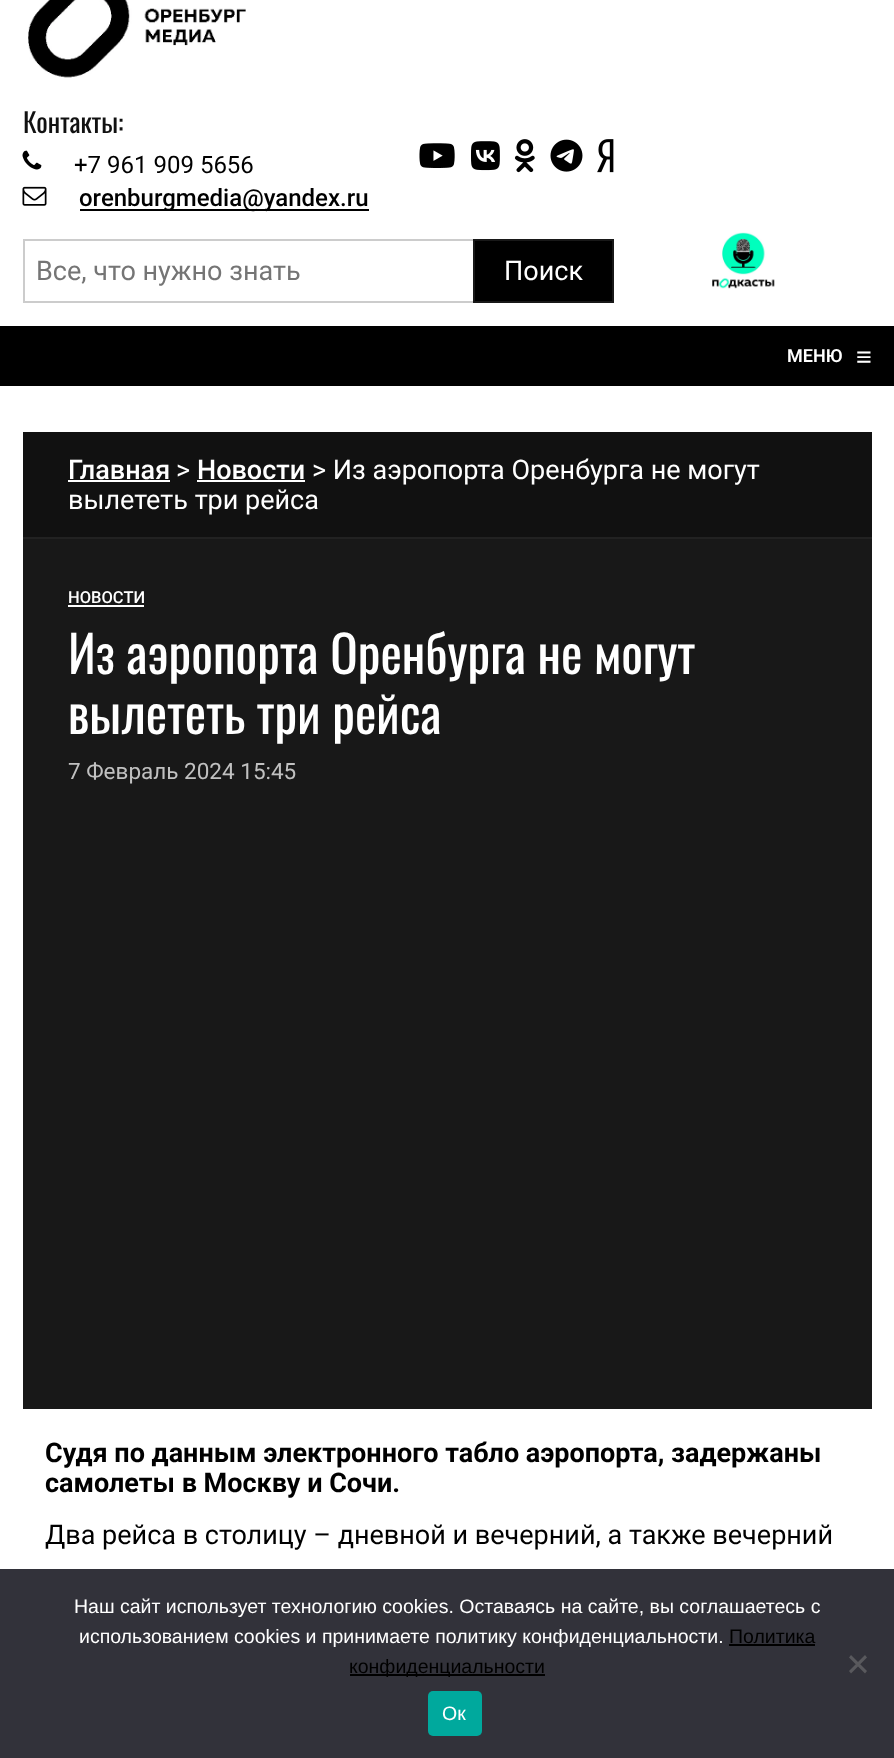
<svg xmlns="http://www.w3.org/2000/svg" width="894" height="1758">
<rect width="100%" height="100%" fill="#fff"/>
<image x="28" y="0" width="218" height="78" href="media/1.png"/>
<text x="23" y="133" style="font-family:Oswald;font-size:27px;fill:#111">Контакты:</text>
<image x="22" y="150" width="20" height="20" href="media/2.png"/>
<text x="74" y="173" style="font-family:Roboto;font-size:24px;fill:#000">+7 961 909 5656</text>
<image x="22" y="186" width="25" height="20" href="media/3.png"/>
<rect x="80" y="209" width="289" height="2" fill="#000"/>
<text x="79" y="206" style="font-family:Roboto;font-size:24px;font-weight:500;fill:#000">orenburgmedia@yandex.ru</text>
<image x="419" y="143" width="36" height="25" href="media/4.png"/>
<image x="471" y="141" width="29" height="30" href="media/5.png"/>
<image x="514" y="139" width="21" height="34" href="media/6.png"/>
<image x="550" y="139" width="33" height="33" href="media/7.png"/>
<image x="597" y="139" width="17" height="34" href="media/8.png"/>
<rect x="24" y="240" width="454" height="62" fill="none" stroke="#ccc" stroke-width="2"/>
<text x="36" y="280" style="font-family:Roboto;font-size:27px;fill:#757575">Все, что нужно знать</text>
<rect x="474" y="240" width="139" height="62" fill="#000" stroke="#181818" stroke-width="2"/>
<text x="504" y="280" style="font-family:Roboto;font-size:27px;fill:#fff">Поиск</text>
<image x="712" y="232" width="63" height="57" href="media/9.png"/>
<rect y="326" width="894" height="60" fill="#000"/>
<text x="787" y="362" style="font-family:Roboto;font-size:18px;font-weight:600;fill:#fff">МЕНЮ</text>
<text x="856" y="366" style="font-family:Liberation Sans;font-size:27px;fill:#fff">≡</text>
<rect x="23" y="537" width="849" height="2" fill="#222"/>
<rect x="23" y="432" width="849" height="105" fill="#111"/>
<text x="68" y="479" style="font-family:Roboto;font-size:27px;font-weight:500;fill:#fff">Главная</text>
<rect x="68" y="480" width="102" height="2" fill="#fff"/>
<text x="176" y="479" style="font-family:Roboto;font-size:27px;fill:#fff">&gt;</text>
<text x="197" y="479" style="font-family:Roboto;font-size:27px;font-weight:500;fill:#fff">Новости</text>
<rect x="197" y="480" width="108" height="2" fill="#fff"/>
<text x="312" y="479" style="font-family:Roboto;font-size:27px;fill:#fff">&gt; Из аэропорта Оренбурга не могут</text>
<text x="68" y="509" style="font-family:Roboto;font-size:27px;fill:#fff">вылететь три рейса</text>
<rect x="23" y="539" width="849" height="870" fill="#181818"/>
<text x="68" y="603" style="font-family:Roboto;font-size:16.5px;font-weight:500;fill:#fff">НОВОСТИ</text>
<rect x="68" y="605" width="76" height="2" fill="#fff"/>
<text x="68" y="674" style="font-family:Oswald;font-size:51px;fill:#fff">Из аэропорта Оренбурга не могут</text>
<text x="68" y="734" style="font-family:Oswald;font-size:51px;fill:#fff">вылететь три рейса</text>
<text x="68" y="779" style="font-family:Roboto;font-size:22.5px;fill:#c0c0c0">7 Февраль 2024 15:45</text>
<text x="45" y="1462" style="font-family:Roboto;font-size:27px;font-weight:bold;fill:#000">Судя по данным электронного табло аэропорта, задержаны</text>
<text x="45" y="1492" style="font-family:Roboto;font-size:27px;font-weight:bold;fill:#000">самолеты в Москву и Сочи.</text>
<text x="45" y="1544" style="font-family:Roboto;font-size:27px;fill:#000">Два рейса в столицу – дневной и вечерний, а также вечерний</text>
<rect y="1569" width="894" height="189" fill="#32323a"/>
<text x="74" y="1613" style="font-family:Liberation Sans;font-size:19.5px;fill:#fff">Наш сайт использует технологию cookies. Оставаясь на сайте, вы соглашаетесь с</text>
<text x="79" y="1643" style="font-family:Liberation Sans;font-size:19.5px;fill:#fff">использованием cookies и принимаете политику конфиденциальности.</text>
<text x="729" y="1643" style="font-family:Liberation Sans;font-size:19.5px;fill:#000">Политика</text>
<rect x="729" y="1644" width="86" height="2" fill="#000"/>
<rect x="350" y="1674" width="195" height="2" fill="#000"/>
<text x="349" y="1673" style="font-family:Liberation Sans;font-size:19.5px;fill:#000">конфиденциальности</text>
<path d="M865 1655l2 2.5l-16 16l-2-2.5z" fill="#59595d"/>
<path d="M849 1657.5l2-2.5l16 16l-2 2.5z" fill="#59595d"/>
<rect x="428" y="1691" width="54" height="45" rx="5" fill="#00a99d"/>
<text x="442" y="1720" style="font-family:Liberation Sans;font-size:19.5px;fill:#fff">Ок</text>
</svg>
